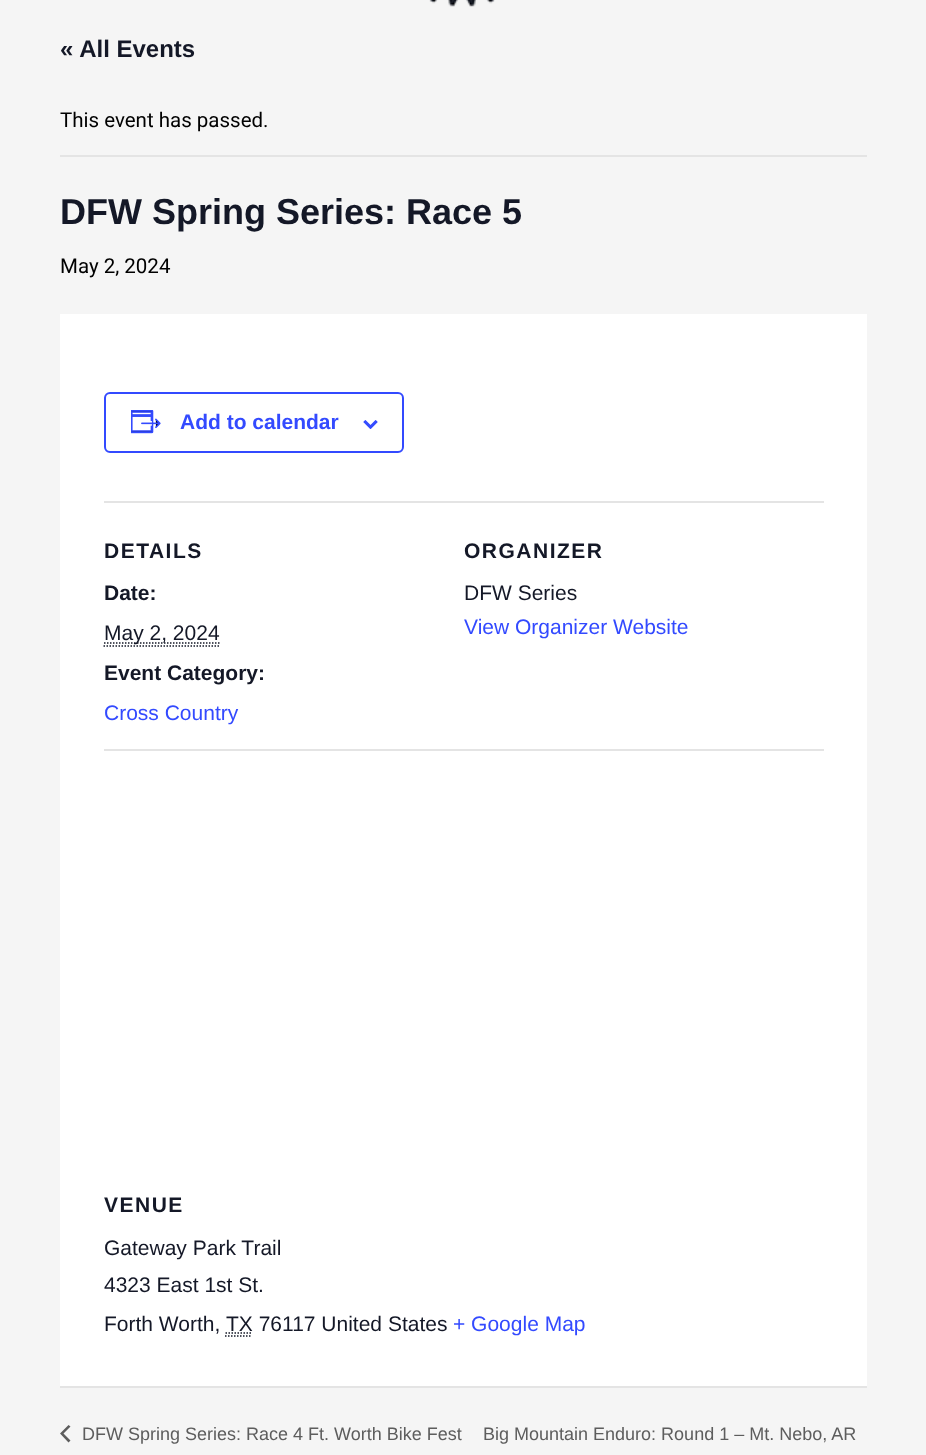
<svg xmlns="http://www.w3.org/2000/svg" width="926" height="1455">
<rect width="100%" height="100%" fill="#f5f5f5"/>
<image x="429" y="0" width="66" height="7" href="media/1.png"/>
<text x="60" y="57" style="font-family:Liberation Sans;font-size:24px;font-weight:bold;fill:#141827">« All Events</text>
<rect x="60" y="155" width="807" height="2" fill="#e4e4e4"/>
<text x="60" y="127" style="font-family:Roboto;font-size:20.5px;fill:#000">This event has passed.</text>
<text x="60" y="224" style="font-family:Liberation Sans;font-size:36px;font-weight:bold;fill:#141827">DFW Spring Series: Race 5</text>
<text x="60" y="273" style="font-family:Roboto;font-size:20.5px;fill:#000">May 2, 2024</text>
<rect x="60" y="314" width="807" height="1072" fill="#fff"/>
<rect x="105" y="393" width="298" height="59" rx="5" fill="none" stroke="#334aff" stroke-width="2"/>
<image x="131" y="410" width="30" height="24" href="media/2.png"/>
<text x="180" y="429" style="font-family:Liberation Sans;font-size:21px;font-weight:bold;fill:#334aff">Add to calendar</text>
<image x="363" y="420" width="15" height="9" href="media/3.png"/>
<rect x="104" y="501" width="720" height="2" fill="#e4e4e4"/>
<text x="104" y="558" style="font-family:Liberation Sans;font-size:21px;font-weight:bold;letter-spacing:1.5px;fill:#141827">DETAILS</text>
<text x="104" y="600" style="font-family:Liberation Sans;font-size:21px;font-weight:bold;fill:#141827">Date:</text>
<path d="M104 643h115.5" fill="none" stroke="#141827" stroke-width="1.5" stroke-dasharray="1.5 1.5"/>
<text x="104" y="640" style="font-family:Liberation Sans;font-size:21px;fill:#141827">May 2, 2024</text>
<path d="M103.5 646h115.5" fill="none" stroke="#141827" stroke-width="1.5" stroke-dasharray="1.5 1.5"/>
<text x="104" y="680" style="font-family:Liberation Sans;font-size:21px;font-weight:bold;fill:#141827">Event Category:</text>
<text x="104" y="720" style="font-family:Liberation Sans;font-size:21px;fill:#334aff">Cross Country</text>
<text x="464" y="558" style="font-family:Liberation Sans;font-size:21px;font-weight:bold;letter-spacing:1.5px;fill:#141827">ORGANIZER</text>
<text x="464" y="600" style="font-family:Liberation Sans;font-size:21px;fill:#141827">DFW Series</text>
<text x="464" y="634" style="font-family:Liberation Sans;font-size:21px;fill:#334aff">View Organizer Website</text>
<rect x="104" y="749" width="720" height="2" fill="#e4e4e4"/>
<text x="104" y="1212" style="font-family:Liberation Sans;font-size:21px;font-weight:bold;letter-spacing:1.5px;fill:#141827">VENUE</text>
<text x="104" y="1255" style="font-family:Liberation Sans;font-size:21px;fill:#141827">Gateway Park Trail</text>
<text x="104" y="1292" style="font-family:Liberation Sans;font-size:21px;fill:#141827">4323 East 1st St.</text>
<text x="104" y="1331" style="font-family:Liberation Sans;font-size:21px;fill:#141827">Forth Worth,</text>
<text x="226" y="1331" style="font-family:Liberation Sans;font-size:21px;fill:#141827">TX 76117 United States</text>
<path d="M225 1336h27m-26.5-3h27" fill="none" stroke="#141827" stroke-width="1.5" stroke-dasharray="1.5 1.5"/>
<text x="453" y="1331" style="font-family:Liberation Sans;font-size:21px;fill:#334aff">+ Google Map</text>
<rect x="60" y="1386" width="807" height="2" fill="#e4e4e4"/>
<path d="M70.5 1440.5l-2 2l-8.5-9l8.5-8.5l2 1.5l-7 7z" fill="#5d5d5d"/>
<text x="82" y="1440" style="font-family:Liberation Sans;font-size:18px;fill:#5d5d5d">DFW Spring Series: Race 4 Ft. Worth Bike Fest</text>
<text x="483" y="1440" style="font-family:Liberation Sans;font-size:18px;fill:#5d5d5d">Big Mountain Enduro: Round 1 – Mt. Nebo, AR</text>
</svg>
